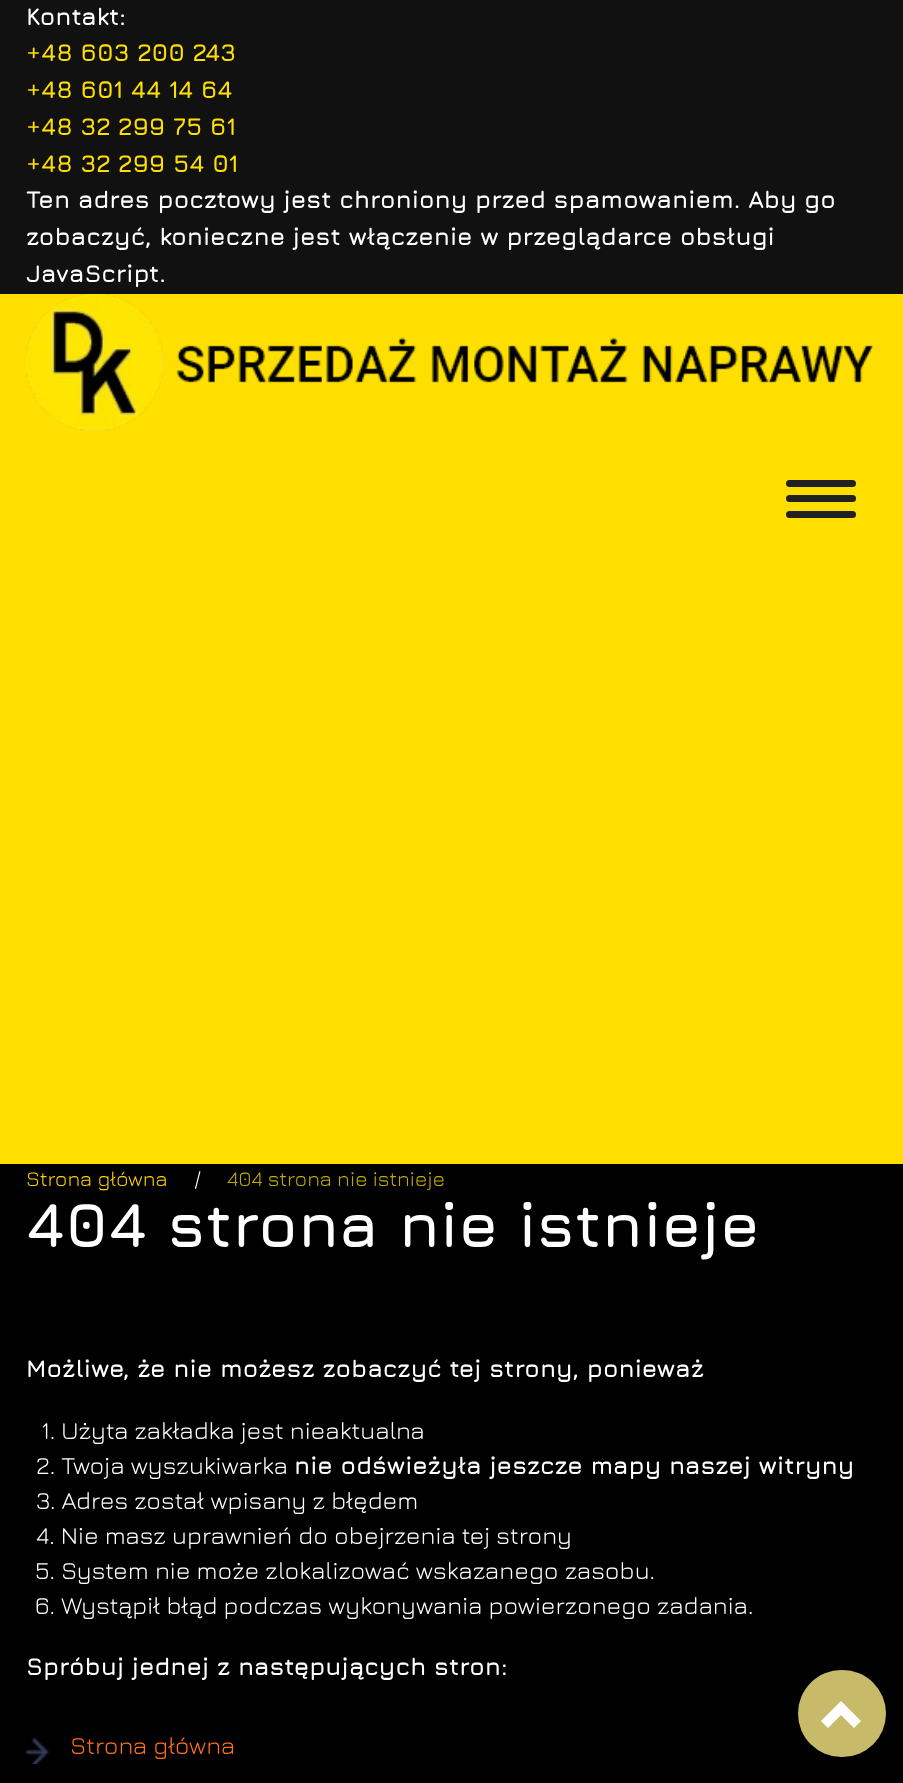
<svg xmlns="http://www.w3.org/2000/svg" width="903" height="1783">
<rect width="100%" height="100%" fill="#000"/>
<rect width="903" height="294" fill="#111"/>
<text x="26" y="25" style="font-family:jura;font-size:24.5px;font-weight:bold;fill:#fff">Kontakt:</text>
<text x="26" y="61" style="font-family:jura;font-size:24.5px;font-weight:bold;fill:#ffdf00">+48 603 200 243</text>
<text x="26" y="98" style="font-family:jura;font-size:24.5px;font-weight:bold;fill:#ffdf00">+48 601 44 14 64</text>
<text x="26" y="135" style="font-family:jura;font-size:24.5px;font-weight:bold;fill:#ffdf00">+48 32 299 75 61</text>
<text x="26" y="172" style="font-family:jura;font-size:24.5px;font-weight:bold;fill:#ffdf00">+48 32 299 54 01</text>
<text x="26" y="208" style="font-family:jura;font-size:24.5px;font-weight:bold;fill:#fff">Ten adres pocztowy jest chroniony przed spamowaniem. Aby go</text>
<text x="26" y="245" style="font-family:jura;font-size:24.5px;font-weight:bold;fill:#fff">zobaczyć, konieczne jest włączenie w przeglądarce obsługi</text>
<text x="26" y="282" style="font-family:jura;font-size:24.5px;font-weight:bold;fill:#fff">JavaScript.</text>
<rect y="294" width="903" height="870" fill="#ffdf00"/>
<image x="26" y="294" width="848" height="137" href="media/1.png"/>
<rect x="786" y="480" width="70" height="7" rx="3.5" fill="#212121"/>
<rect x="786" y="495" width="70" height="7" rx="3.5" fill="#212121"/>
<rect x="786" y="511" width="70" height="7" rx="3.5" fill="#212121"/>
<text x="26" y="1186" style="font-family:Jura;font-size:21px;fill:#ffcf00">Strona główna</text>
<text x="194" y="1186" style="font-family:Jura;font-size:21px;fill:#fff">/</text>
<text x="227" y="1186" style="font-family:Jura;font-size:21px;fill:#c2ab00">404 strona nie istnieje</text>
<text x="26" y="1247" style="font-family:jura;font-size:63px;font-weight:bold;fill:#fff">404 strona nie istnieje</text>
<text x="26" y="1377" style="font-family:jura;font-size:24.5px;font-weight:bold;fill:#fff">Możliwe, że nie możesz zobaczyć tej strony, ponieważ</text>
<text x="41" y="1439" style="font-family:Jura;font-size:24.5px;fill:#fff">1. Użyta zakładka jest nieaktualna</text>
<text x="36" y="1474" style="font-family:Jura;font-size:24.5px;fill:#fff">2. Twoja wyszukiwarka</text>
<text x="294" y="1474" style="font-family:jura;font-size:24.5px;font-weight:bold;fill:#fff">nie odświeżyła jeszcze mapy naszej witryny</text>
<text x="36" y="1509" style="font-family:Jura;font-size:24.5px;fill:#fff">3. Adres został wpisany z błędem</text>
<text x="36" y="1544" style="font-family:Jura;font-size:24.5px;fill:#fff">4. Nie masz uprawnień do obejrzenia tej strony</text>
<text x="35" y="1579" style="font-family:Jura;font-size:24.5px;fill:#fff">5. System nie może zlokalizować wskazanego zasobu.</text>
<text x="35" y="1614" style="font-family:Jura;font-size:24.5px;fill:#fff">6. Wystąpił błąd podczas wykonywania powierzonego zadania.</text>
<text x="26" y="1675" style="font-family:jura;font-size:24.5px;font-weight:bold;fill:#fff">Spróbuj jednej z następujących stron:</text>
<image x="26" y="1737" width="23" height="27" href="media/2.png"/>
<text x="70" y="1754" style="font-family:Jura;font-size:24.5px;fill:#ff7017">Strona główna</text>
<rect x="798" y="1670" width="88" height="87" rx="43.5" fill="#c7bb69"/>
<path d="M861 1721l-7 7l-13-13l-13 13l-7-7l20-20z" fill="#fff"/>
</svg>
